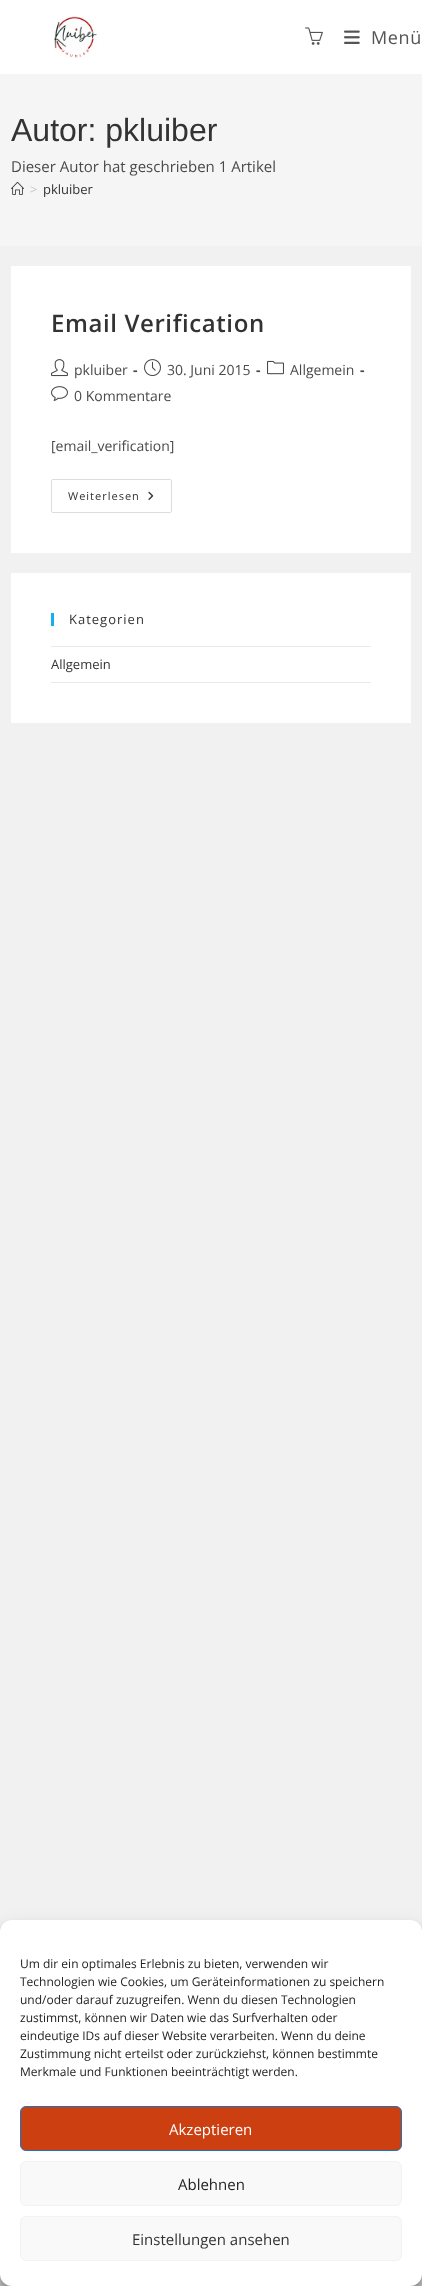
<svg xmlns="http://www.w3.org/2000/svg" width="422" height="2286">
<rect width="100%" height="100%" fill="#f1f1f1"/>
<rect width="422" height="74" fill="#fff"/>
<image x="54" y="16" width="43" height="42" href="media/1.png"/>
<image x="305" y="27" width="18" height="18" href="media/2.png"/>
<image x="344" y="30" width="16" height="14" href="media/3.png"/>
<text x="371" y="44" style="font-family:Open Sans;font-size:18px;letter-spacing:0.6px;fill:#555">Menü</text>
<rect y="74" width="422" height="172" fill="#f5f5f5"/>
<text x="11" y="141" style="font-family:Liberation Sans;font-size:32px;fill:#333">Autor: pkluiber</text>
<text x="11" y="172" style="font-family:Open Sans;font-size:15px;fill:#4a4a4a">Dieser Autor hat geschrieben 1 Artikel</text>
<image x="11" y="181" width="13" height="14" href="media/4.png"/>
<text x="30" y="194" style="font-family:Open Sans;font-size:13px;fill:#c6c6c6">&gt;</text>
<text x="43" y="194" style="font-family:Open Sans;font-size:13px;fill:#333">pkluiber</text>
<rect x="11" y="266" width="400" height="287" fill="#fff"/>
<text x="51" y="332" style="font-family:Open Sans;font-size:24px;font-weight:600;letter-spacing:0.6px;fill:#333">Email Verification</text>
<image x="51" y="359" width="17" height="18" href="media/5.png"/>
<text x="74" y="375" style="font-family:Open Sans;font-size:14px;fill:#4a4a4a">pkluiber</text>
<text x="133" y="375" style="font-family:Open Sans;font-size:14px;font-weight:bold;fill:#4a4a4a">-</text>
<image x="144" y="359" width="17" height="18" href="media/6.png"/>
<text x="167" y="375" style="font-family:Open Sans;font-size:14px;fill:#4a4a4a">30. Juni 2015</text>
<text x="256" y="375" style="font-family:Open Sans;font-size:14px;font-weight:bold;fill:#4a4a4a">-</text>
<image x="267" y="360" width="17" height="15" href="media/7.png"/>
<text x="290" y="375" style="font-family:Open Sans;font-size:14px;fill:#4a4a4a">Allgemein</text>
<text x="360" y="375" style="font-family:Open Sans;font-size:14px;font-weight:bold;fill:#4a4a4a">-</text>
<image x="51" y="386" width="17" height="15" href="media/8.png"/>
<text x="74" y="401" style="font-family:Open Sans;font-size:14px;fill:#4a4a4a">0 Kommentare</text>
<text x="51" y="451" style="font-family:Open Sans;font-size:14px;fill:#4a4a4a">[email_verification]</text>
<rect x="51.5" y="479.5" width="120" height="33" rx="1.5" fill="none" stroke="#ddd"/>
<text x="68" y="500" style="font-family:Open Sans;font-size:11px;letter-spacing:1px;fill:#333">Weiterlesen</text>
<image x="148" y="491" width="6" height="9" href="media/9.png"/>
<rect x="11" y="573" width="400" height="150" fill="#fff"/>
<rect x="51" y="613" width="3" height="13" fill="#13aff0"/>
<text x="69" y="624" style="font-family:Open Sans;font-size:13px;letter-spacing:1px;fill:#333">Kategorien</text>
<rect x="51" y="646" width="320" height="1" fill="#e9e9e9"/>
<rect x="51" y="682" width="320" height="1" fill="#e9e9e9"/>
<text x="51" y="669" style="font-family:Open Sans;font-size:13px;fill:#333">Allgemein</text>
<rect y="2274" width="422" height="12" fill="#d1d1d1"/>
<rect y="1926" width="422" height="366" rx="12" fill="#0000003b" filter="blur(3px)"/>
<rect y="1930" width="422" height="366" rx="12" fill="#00000030" filter="blur(10px)"/>
<rect y="1920" width="422" height="366" rx="12" fill="#fff"/>
<text x="20" y="1968" style="font-family:Open Sans;font-size:12px;fill:#222">Um dir ein optimales Erlebnis zu bieten, verwenden wir</text>
<text x="20" y="1986" style="font-family:Open Sans;font-size:12px;fill:#222">Technologien wie Cookies, um Geräteinformationen zu speichern</text>
<text x="20" y="2004" style="font-family:Open Sans;font-size:12px;fill:#222">und/oder darauf zuzugreifen. Wenn du diesen Technologien</text>
<text x="20" y="2022" style="font-family:Open Sans;font-size:12px;fill:#222">zustimmst, können wir Daten wie das Surfverhalten oder</text>
<text x="20" y="2040" style="font-family:Open Sans;font-size:12px;fill:#222">eindeutige IDs auf dieser Website verarbeiten. Wenn du deine</text>
<text x="20" y="2058" style="font-family:Open Sans;font-size:12px;fill:#222">Zustimmung nicht erteilst oder zurückziehst, können bestimmte</text>
<text x="20" y="2076" style="font-family:Open Sans;font-size:12px;fill:#222">Merkmale und Funktionen beeinträchtigt werden.</text>
<rect x="20.5" y="2106.5" width="381" height="44" rx="5.5" fill="#cc3f10" stroke="#1e73be"/>
<text x="169" y="2135" style="font-family:Open Sans;font-size:15px;fill:#fff">Akzeptieren</text>
<rect x="20.5" y="2161.5" width="381" height="44" rx="5.5" fill="#f9f9f9" stroke="#f2f2f2"/>
<text x="178" y="2190" style="font-family:Open Sans;font-size:15px;fill:#222">Ablehnen</text>
<rect x="20.5" y="2216.5" width="381" height="44" rx="5.5" fill="#f9f9f9" stroke="#f2f2f2"/>
<text x="132" y="2245" style="font-family:Open Sans;font-size:15px;fill:#333">Einstellungen ansehen</text>
</svg>
